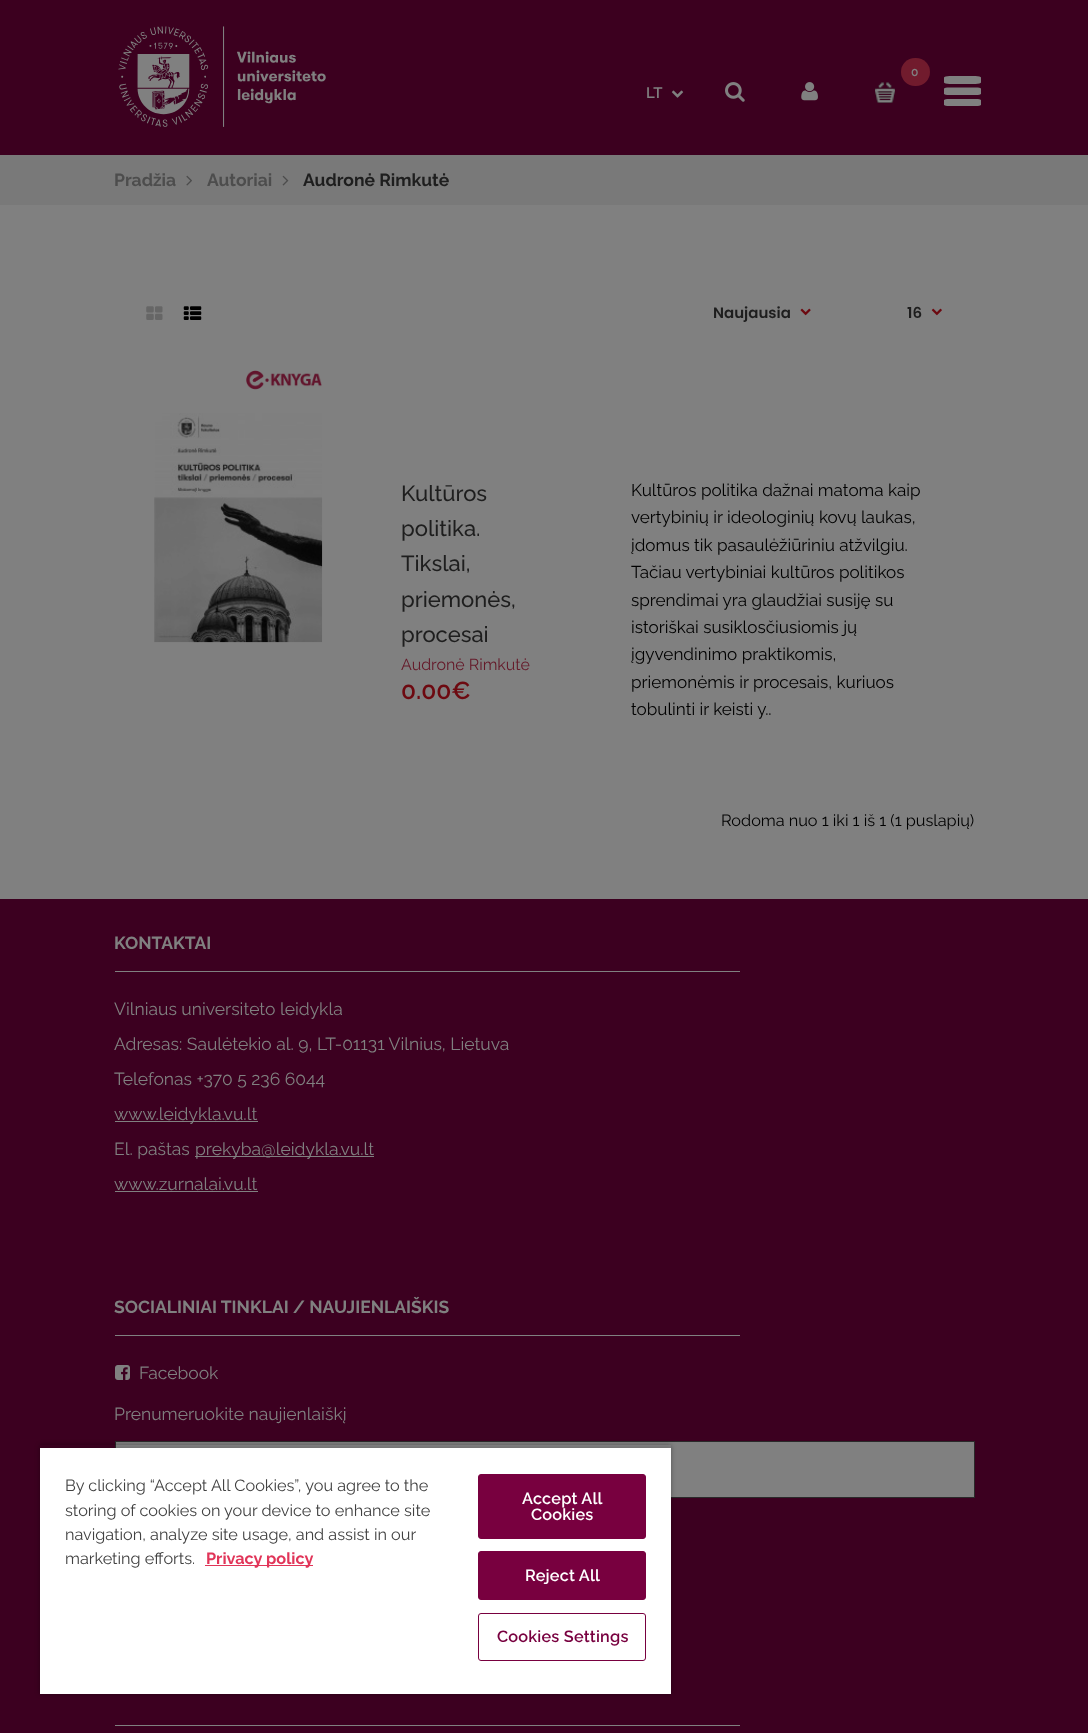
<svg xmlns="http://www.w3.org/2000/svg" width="1088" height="1733">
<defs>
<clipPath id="clip1"><path d="M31 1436h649v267h-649zm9 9h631v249h-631z" clip-rule="evenodd"/></clipPath>
<clipPath id="clip2"><rect x="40" y="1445" width="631" height="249"/></clipPath>
</defs>
<rect width="100%" height="100%" fill="#808080"/>
<rect width="1088" height="155" fill="#3c001f"/>
<image x="118" y="26" width="208" height="101" href="media/1.png"/>
<rect x="901" y="58" width="29" height="28" rx="14" fill="#711b2d"/>
<text x="911" y="76" style="font-family:Raleway;font-size:12px;font-weight:600;fill:#808080">0</text>
<image x="875" y="82" width="20" height="21" href="media/2.png"/>
<image x="875" y="82" width="20" height="21" href="media/3.png"/>
<text x="646" y="98" style="font-family:Raleway;font-size:15px;font-weight:600;fill:#808080">LT</text>
<image x="671" y="90" width="13" height="8" href="media/4.png"/>
<image x="725" y="82" width="20" height="20" href="media/5.png"/>
<image x="801" y="82" width="17" height="19" href="media/6.png"/>
<path d="M949.5 76h26c3 0 5.5 1 5.5 1.5v5c0 .5-2.5 1.5-5.5 1.5h-26c-3 0-5.5-1-5.5-1.5v-5c0-.5 2.5-1.5 5.5-1.5zm0 11.5h26c3 0 5.5 .5 5.5 1v5.5c0 .5-2.5 1-5.5 1h-26c-3 0-5.5-.5-5.5-1v-5.5c0-.5 2.5-1 5.5-1zm0 11.5h26c3 0 5.5 .5 5.5 1v5c0 .5-2.5 1-5.5 1h-26c-3 0-5.5-.5-5.5-1v-5c0-.5 2.5-1 5.5-1z" fill="#808080"/>
<rect y="155" width="1088" height="50" fill="#797979"/>
<text x="114" y="186" style="font-family:Raleway;font-size:17.5px;font-weight:bold;fill:#4d4d4d">Pradžia</text>
<image x="186" y="175" width="6" height="11" href="media/7.png"/>
<text x="207" y="186" style="font-family:Raleway;font-size:17.5px;font-weight:bold;fill:#4d4d4d">Autoriai</text>
<image x="282" y="175" width="7" height="11" href="media/8.png"/>
<text x="303" y="186" style="font-family:Raleway;font-size:17.5px;font-weight:bold;fill:#1e1e1e">Audronė Rimkutė</text>
<image x="146" y="306" width="17" height="14" href="media/9.png"/>
<image x="183" y="306" width="19" height="14" href="media/10.png"/>
<text x="713" y="318" style="font-family:Poppins;font-size:15px;font-weight:600;fill:#1e1e1e">Naujausia</text>
<image x="800" y="308" width="11" height="8" href="media/11.png"/>
<text x="907" y="318" style="font-family:Poppins;font-size:15px;font-weight:600;fill:#1e1e1e">16</text>
<image x="931" y="308" width="11" height="8" href="media/12.png"/>
<image x="246" y="370" width="76" height="20" href="media/13.png"/>
<image x="154" y="413" width="169" height="230" href="media/14.png"/>
<text x="401" y="501" style="font-family:Raleway;font-size:22px;font-weight:500;fill:#1e1e1e">Kultūros</text>
<text x="401" y="536" style="font-family:Raleway;font-size:22px;font-weight:500;fill:#1e1e1e">politika.</text>
<text x="401" y="571" style="font-family:Raleway;font-size:22px;font-weight:500;fill:#1e1e1e">Tikslai,</text>
<text x="401" y="607" style="font-family:Raleway;font-size:22px;font-weight:500;fill:#1e1e1e">priemonės,</text>
<text x="401" y="642" style="font-family:Raleway;font-size:22px;font-weight:500;fill:#1e1e1e">procesai</text>
<text x="401" y="670" style="font-family:Raleway;font-size:16px;fill:#641828">Audronė Rimkutė</text>
<text x="401" y="699" style="font-family:Raleway;font-size:24.5px;font-weight:600;fill:#6d0910">0.00€</text>
<text x="631" y="496" style="font-family:Raleway;font-size:17.1px;fill:#000">Kultūros politika dažnai matoma kaip</text>
<text x="631" y="523" style="font-family:Raleway;font-size:17.1px;fill:#000">vertybinių ir ideologinių kovų laukas,</text>
<text x="631" y="551" style="font-family:Raleway;font-size:17.1px;fill:#000">įdomus tik pasaulėžiūriniu atžvilgiu.</text>
<text x="631" y="578" style="font-family:Raleway;font-size:17.1px;fill:#000">Tačiau vertybiniai kultūros politikos</text>
<text x="631" y="606" style="font-family:Raleway;font-size:17.1px;fill:#000">sprendimai yra glaudžiai susiję su</text>
<text x="631" y="633" style="font-family:Raleway;font-size:17.1px;fill:#000">istoriškai susiklosčiusiomis jų</text>
<text x="631" y="660" style="font-family:Raleway;font-size:17.1px;fill:#000">įgyvendinimo praktikomis,</text>
<text x="631" y="688" style="font-family:Raleway;font-size:17.1px;fill:#000">priemonėmis ir procesais, kuriuos</text>
<text x="631" y="715" style="font-family:Raleway;font-size:17.1px;fill:#000">tobulinti ir keisti y..</text>
<text x="721" y="826" style="font-family:Raleway;font-size:16.25px;fill:#000">Rodoma nuo 1 iki 1 iš 1 (1 puslapių)</text>
<rect y="899" width="1088" height="834" fill="#3c0020"/>
<text x="114" y="949" style="font-family:Raleway;font-size:17.5px;font-weight:bold;fill:#808080">KONTAKTAI</text>
<rect x="115" y="971" width="625" height="1" fill="#808080"/>
<text x="114" y="1015" style="font-family:Raleway;font-size:17.5px;fill:#808080">Vilniaus universiteto leidykla</text>
<text x="114" y="1050" style="font-family:Raleway;font-size:17.5px;fill:#808080">Adresas: Saulėtekio al. 9, LT-01131 Vilnius, Lietuva</text>
<text x="114" y="1085" style="font-family:Raleway;font-size:17.5px;fill:#808080">Telefonas +370 5 236 6044</text>
<rect x="115" y="1121" width="143" height="1" fill="#808080"/>
<text x="114" y="1120" style="font-family:Raleway;font-size:17.5px;fill:#808080">www.leidykla.vu.lt</text>
<text x="114" y="1155" style="font-family:Raleway;font-size:17.5px;fill:#808080">El. paštas</text>
<rect x="195" y="1156" width="179" height="1" fill="#808080"/>
<text x="195" y="1155" style="font-family:Raleway;font-size:17.5px;fill:#808080">prekyba@leidykla.vu.lt</text>
<text x="114" y="1190" style="font-family:Raleway;font-size:17.5px;fill:#808080">www.zurnalai.vu.lt</text>
<rect x="115" y="1191" width="143" height="1" fill="#808080"/>
<text x="114" y="1313" style="font-family:Raleway;font-size:17.5px;font-weight:bold;fill:#808080">SOCIALINIAI TINKLAI / NAUJIENLAIŠKIS</text>
<rect x="115" y="1335" width="625" height="1" fill="#808080"/>
<image x="115" y="1365" width="15" height="15" href="media/15.png"/>
<text x="139" y="1379" style="font-family:Raleway;font-size:17.5px;fill:#808080">Facebook</text>
<text x="114" y="1420" style="font-family:Raleway;font-size:17.5px;fill:#808080">Prenumeruokite naujienlaiškį</text>
<rect x="115.5" y="1441.5" width="859" height="56" fill="#808080" stroke="#2a2a2a"/>
<rect x="115" y="1725" width="625" height="1" fill="#808080"/>
<g clip-path="url(#clip1)">
<rect x="40" y="1445" width="631" height="249" fill="#00000059" filter="blur(2.5px)"/>
</g>
<g clip-path="url(#clip2)">
<rect x="40" y="1448" width="631" height="246" fill="#00000033" filter="blur(2.5px)"/>
</g>
<rect x="40" y="1448" width="631" height="246" fill="#fff"/>
<text x="65" y="1491" style="font-family:Raleway;font-size:16.25px;fill:#414141">By clicking “Accept All Cookies”, you agree to the</text>
<text x="65" y="1516" style="font-family:Raleway;font-size:16.25px;fill:#414141">storing of cookies on your device to enhance site</text>
<text x="65" y="1540" style="font-family:Raleway;font-size:16.25px;fill:#414141">navigation, analyze site usage, and assist in our</text>
<text x="65" y="1564" style="font-family:Raleway;font-size:16.25px;fill:#414141">marketing efforts.</text>
<rect x="205" y="1565" width="108" height="1" fill="#e13559"/>
<text x="206" y="1564" style="font-family:Raleway;font-size:16.25px;font-weight:bold;fill:#e13559">Privacy policy</text>
<rect x="478.5" y="1474.5" width="167" height="64" rx="2.5" fill="#78003f" stroke="#78003f"/>
<text x="522" y="1504" style="font-family:Raleway;font-size:16.25px;font-weight:600;letter-spacing:0.2px;fill:#fff">Accept All</text>
<text x="531" y="1520" style="font-family:Raleway;font-size:16.25px;font-weight:600;letter-spacing:0.2px;fill:#fff">Cookies</text>
<rect x="478.5" y="1551.5" width="167" height="48" rx="2.5" fill="#78003f" stroke="#78003f"/>
<text x="525" y="1581" style="font-family:Raleway;font-size:16.25px;font-weight:600;letter-spacing:0.2px;fill:#fff">Reject All</text>
<rect x="478.5" y="1613.5" width="167" height="47" rx="2.5" fill="none" stroke="#78003f"/>
<text x="497" y="1642" style="font-family:Raleway;font-size:16.25px;font-weight:600;letter-spacing:0.2px;fill:#78003f">Cookies Settings</text>
</svg>
